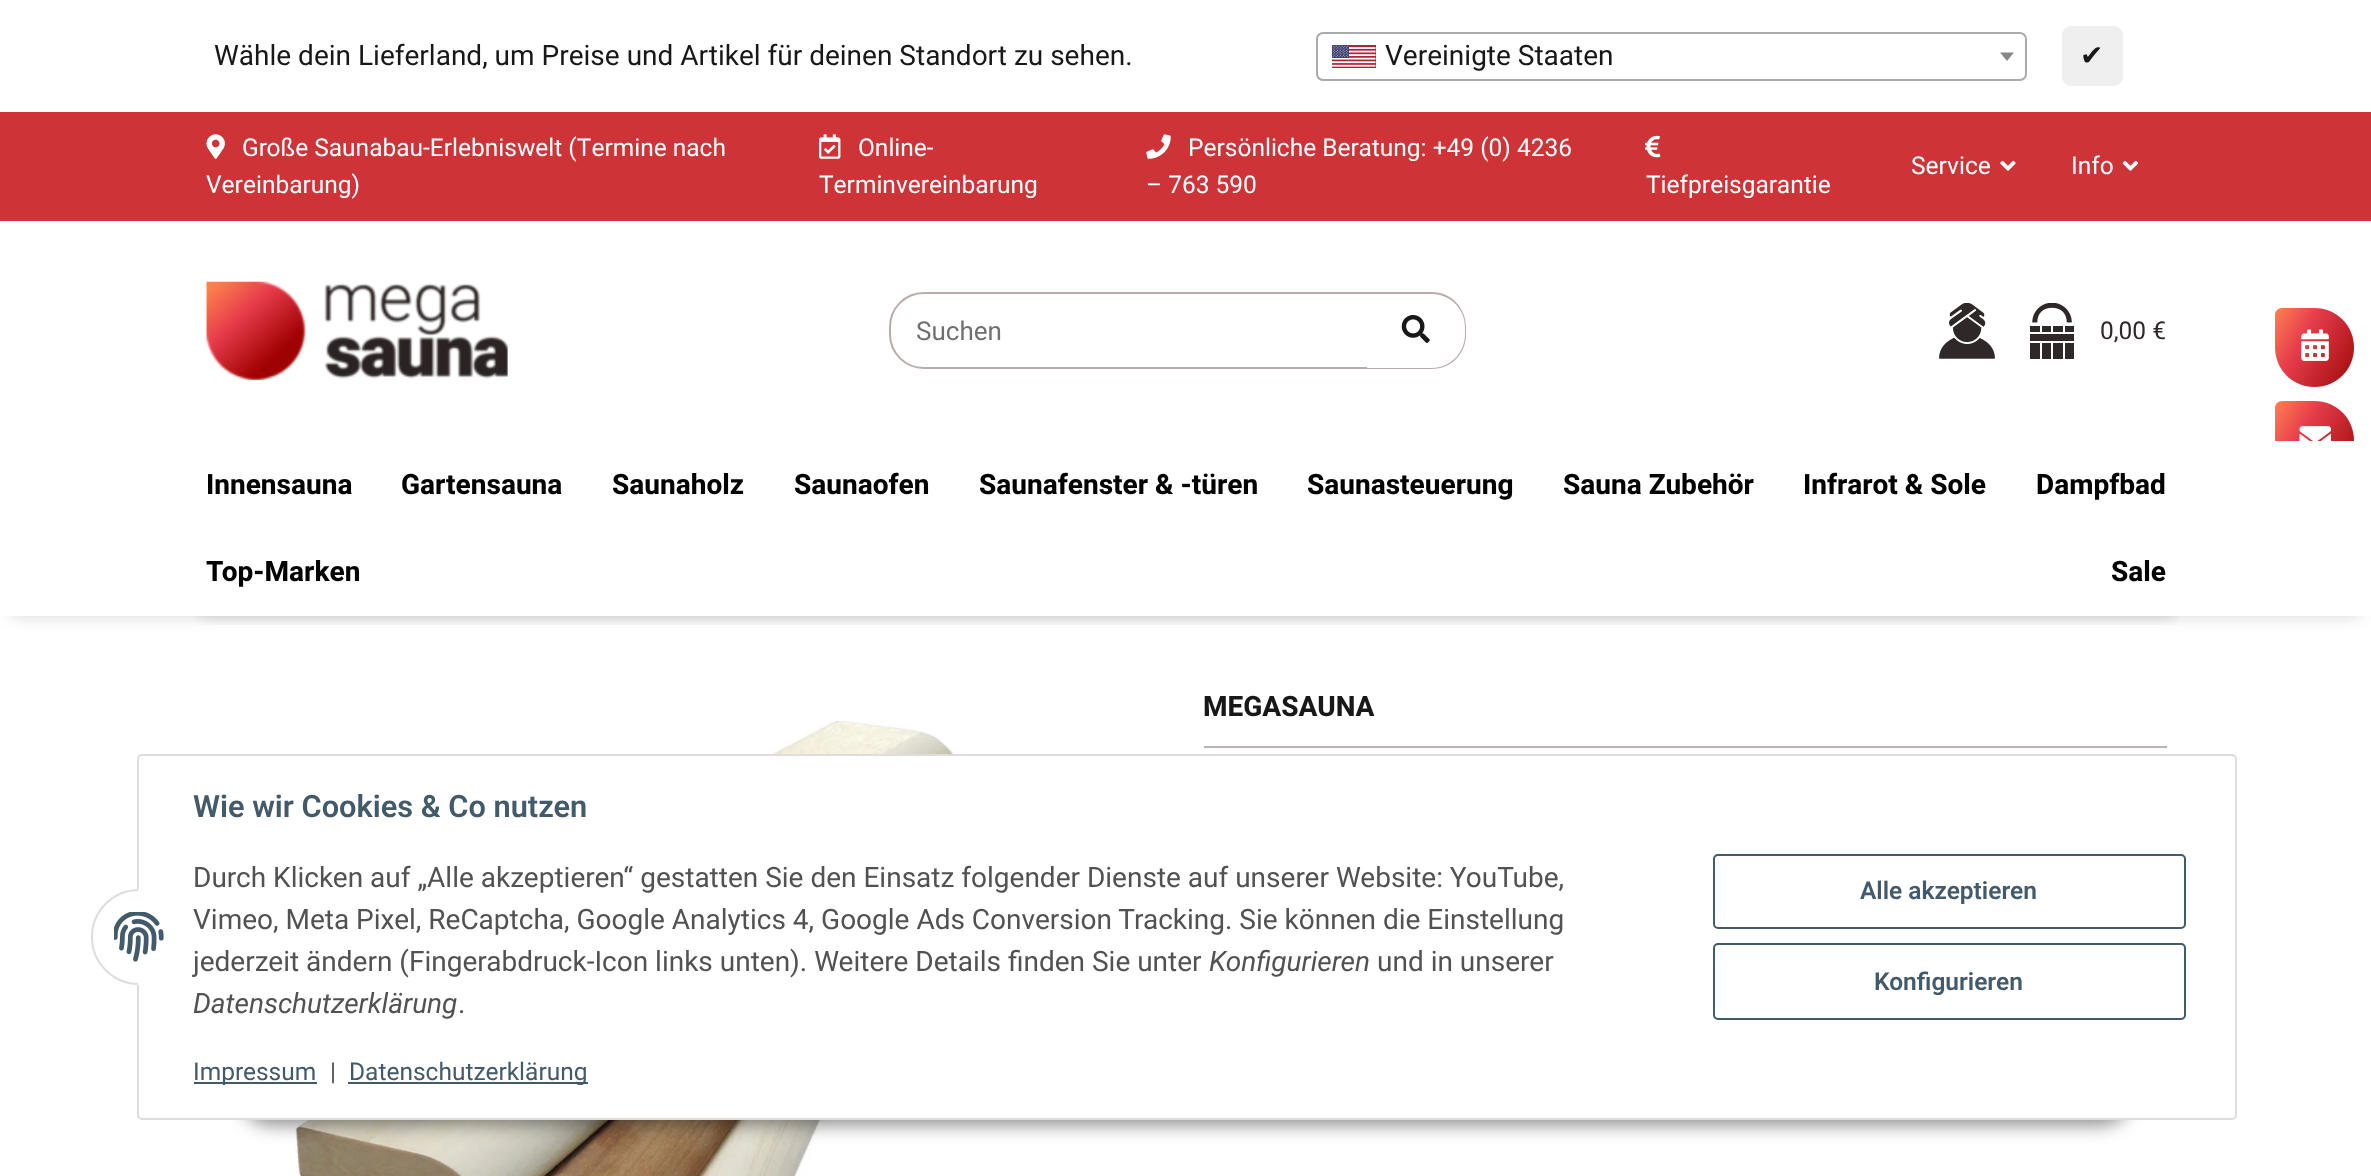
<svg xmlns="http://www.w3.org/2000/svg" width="2371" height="1176">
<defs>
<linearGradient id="g1" gradientUnits="userSpaceOnUse" x1="2268" y1="320" x2="2361" y2="374"><stop offset="0" stop-color="#ff814f"/><stop offset="0.35" stop-color="#e73e4c"/><stop offset="1" stop-color="#9d0909"/></linearGradient>
<linearGradient id="g2" gradientUnits="userSpaceOnUse" x1="2268" y1="413" x2="2361" y2="467"><stop offset="0" stop-color="#ff814f"/><stop offset="0.35" stop-color="#e73e4c"/><stop offset="1" stop-color="#9d0909"/></linearGradient>
<clipPath id="clip1"><rect x="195" y="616" width="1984" height="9"/></clipPath>
</defs>
<rect width="100%" height="100%" fill="#fff"/>
<text x="214" y="65" style="font-family:Heebo;font-size:28px;fill:#181819">Wähle dein Lieferland, um Preise und Artikel für deinen Standort zu sehen.</text>
<rect x="1317" y="33" width="709" height="47" rx="6" fill="none" stroke="#aaa" stroke-width="2"/>
<image x="1332" y="45" width="44" height="23" href="media/1.png"/>
<text x="1385" y="65" style="font-family:Heebo;font-size:28px;fill:#181819">Vereinigte Staaten</text>
<path d="M2000 52.5h14l-7 8.5z" fill="#888"/>
<rect x="2062" y="26" width="61" height="60" rx="9" fill="#efefef"/>
<text x="2080" y="65" style="font-family:DejaVu Sans;font-size:28px;fill:#181819">✔</text>
<rect y="112" width="2371" height="109" fill="#ce3337"/>
<image x="206" y="134" width="19" height="25" href="media/2.png"/>
<text x="242" y="156" style="font-family:Heebo;font-size:24.5px;fill:#fff">Große Saunabau-Erlebniswelt (Termine nach</text>
<text x="206" y="193" style="font-family:Heebo;font-size:24.5px;fill:#fff">Vereinbarung)</text>
<image x="819" y="134" width="22" height="25" href="media/3.png"/>
<text x="858" y="156" style="font-family:Heebo;font-size:24.5px;fill:#fff">Online-</text>
<text x="819" y="193" style="font-family:Heebo;font-size:24.5px;fill:#fff">Terminvereinbarung</text>
<image x="1146" y="134" width="25" height="25" href="media/4.png"/>
<text x="1188" y="156" style="font-family:Heebo;font-size:24.5px;fill:#fff">Persönliche Beratung: +49 (0) 4236</text>
<text x="1146" y="193" style="font-family:Heebo;font-size:24.5px;fill:#fff">– 763 590</text>
<image x="1645" y="135" width="16" height="23" href="media/5.png"/>
<text x="1646" y="193" style="font-family:Heebo;font-size:24.5px;fill:#fff">Tiefpreisgarantie</text>
<text x="1911" y="174" style="font-family:Heebo;font-size:24.5px;fill:#fff">Service</text>
<image x="2000" y="160" width="16" height="11" href="media/6.png"/>
<text x="2071" y="174" style="font-family:Heebo;font-size:24.5px;fill:#fff">Info</text>
<image x="2122" y="160" width="16" height="11" href="media/7.png"/>
<image x="205" y="281" width="303" height="99" href="media/8.png"/>
<path d="M924 293h444v75h-444c-19 0-34-15-34-34v-7c0-19 15-34 34-34z" fill="none" stroke="#b9adab" stroke-width="2"/>
<text x="916" y="340" style="font-family:Heebo;font-size:26px;fill:#707070">Suchen</text>
<path d="M1367 292h65c19.5 0 35 15.5 35 35v7c0 19.5-15.5 35-35 35h-65z" fill="#fff"/>
<path d="M1367 292h65c19 0 34 16 34 35v7c0 20-15 35-34 35h-65zm0 2h65c18 0 33 15 33 33v7c0 19-15 34-33 34h-65z" fill="#b9adab" fill-rule="evenodd"/>
<image x="1401" y="315" width="29" height="28" href="media/9.png"/>
<image x="1939" y="303" width="56" height="56" href="media/10.png"/>
<image x="2030" y="303" width="44" height="56" href="media/11.png"/>
<text x="2100" y="339" style="font-family:Heebo;font-size:24.5px;fill:#2f2828">0,00 €</text>
<path d="M2282 308h32.5c22 0 39.5 17.5 39.5 39.5c0 22-17.5 39.5-39.5 39.5c-22 0-39.5-17.5-39.5-39.5v-32.5c0-4 3-7 7-7z" fill="url(#g1)"/>
<image x="2301" y="329" width="28" height="32" href="media/12.png"/>
<path d="M2282 401h32.5c22 0 39.5 17.5 39.5 39.5c0 22-17.5 39.5-39.5 39.5c-22 0-39.5-17.5-39.5-39.5v-32.5c0-4 3-7 7-7z" fill="url(#g2)"/>
<image x="2299" y="426" width="32" height="15" href="media/13.png"/>
<rect x="11" y="462" width="2350" height="154" fill="#00000029" filter="blur(8px)"/>
<rect y="441" width="2371" height="175" fill="#fff"/>
<g clip-path="url(#clip1)">
<rect x="200" y="462" width="1974" height="154" fill="#00000029" filter="blur(8px)"/>
</g>
<text x="206" y="494" style="font-family:Heebo;font-size:28px;font-weight:bold;fill:#020202">Innensauna</text>
<text x="401" y="494" style="font-family:Heebo;font-size:28px;font-weight:bold;fill:#020202">Gartensauna</text>
<text x="612" y="494" style="font-family:Heebo;font-size:28px;font-weight:bold;fill:#020202">Saunaholz</text>
<text x="794" y="494" style="font-family:Heebo;font-size:28px;font-weight:bold;fill:#020202">Saunaofen</text>
<text x="979" y="494" style="font-family:Heebo;font-size:28px;font-weight:bold;fill:#020202">Saunafenster &amp; -türen</text>
<text x="1307" y="494" style="font-family:Heebo;font-size:28px;font-weight:bold;fill:#020202">Saunasteuerung</text>
<text x="1563" y="494" style="font-family:Heebo;font-size:28px;font-weight:bold;fill:#020202">Sauna Zubehör</text>
<text x="1803" y="494" style="font-family:Heebo;font-size:28px;font-weight:bold;fill:#020202">Infrarot &amp; Sole</text>
<text x="2036" y="494" style="font-family:Heebo;font-size:28px;font-weight:bold;fill:#020202">Dampfbad</text>
<text x="206" y="581" style="font-family:Heebo;font-size:28px;font-weight:bold;fill:#020202">Top-Marken</text>
<text x="2111" y="581" style="font-family:Heebo;font-size:28px;font-weight:bold;fill:#020202">Sale</text>
<rect x="1204" y="746" width="963" height="2" fill="#b9b3b2"/>
<text x="1203" y="716" style="font-family:Heebo;font-size:28px;font-weight:bold;fill:#181819">MEGASAUNA</text>
<image x="251" y="720" width="709" height="456" href="media/14.png"/>
<rect x="242" y="1069" width="1888" height="56" rx="28" fill="#00000073" filter="blur(9px)"/>
<rect x="138" y="755" width="2098" height="364" rx="4" fill="#fff" stroke="#ddd" stroke-width="2"/>
<circle cx="139" cy="937" r="47" fill="#fff" stroke="#ddd" stroke-width="2"/>
<rect x="138" y="889" width="49" height="96" fill="#fff"/>
<image x="114" y="912" width="50" height="50" href="media/15.png"/>
<text x="193" y="817" style="font-family:Roboto;font-size:30.75px;font-weight:600;fill:#435a6b">Wie wir Cookies &amp; Co nutzen</text>
<text x="193" y="887" style="font-family:Roboto;font-size:28px;fill:#525252">Durch Klicken auf „Alle akzeptieren“ gestatten Sie den Einsatz folgender Dienste auf unserer Website: YouTube,</text>
<text x="193" y="929" style="font-family:Roboto;font-size:28px;fill:#525252">Vimeo, Meta Pixel, ReCaptcha, Google Analytics 4, Google Ads Conversion Tracking. Sie können die Einstellung</text>
<text x="193" y="971" style="font-family:Roboto;font-size:28px;fill:#525252">jederzeit ändern (Fingerabdruck-Icon links unten). Weitere Details finden Sie unter</text>
<text x="1209" y="971" style="font-family:Roboto;font-size:28px;font-style:italic;fill:#525252">Konfigurieren</text>
<text x="1377" y="971" style="font-family:Roboto;font-size:28px;fill:#525252">und in unserer</text>
<text x="193" y="1013" style="font-family:Roboto;font-size:28px;font-style:italic;fill:#525252">Datenschutzerklärung</text>
<text x="458" y="1013" style="font-family:Roboto;font-size:28px;fill:#525252">.</text>
<rect x="194" y="1082" width="123" height="2" fill="#435a6b"/>
<text x="193" y="1080" style="font-family:Roboto;font-size:24.5px;fill:#435a6b">Impressum</text>
<text x="330" y="1080" style="font-family:Roboto;font-size:24.5px;fill:#525252">|</text>
<rect x="348" y="1082" width="240" height="2" fill="#435a6b"/>
<text x="349" y="1080" style="font-family:Roboto;font-size:24.5px;fill:#435a6b">Datenschutzerklärung</text>
<rect x="1714" y="855" width="471" height="73" rx="4" fill="none" stroke="#435a6b" stroke-width="2"/>
<text x="1860" y="899" style="font-family:Roboto;font-size:24.5px;font-weight:600;fill:#435a6b">Alle akzeptieren</text>
<rect x="1714" y="944" width="471" height="75" rx="4" fill="none" stroke="#435a6b" stroke-width="2"/>
<text x="1874" y="990" style="font-family:Roboto;font-size:24.5px;font-weight:600;fill:#435a6b">Konfigurieren</text>
</svg>
